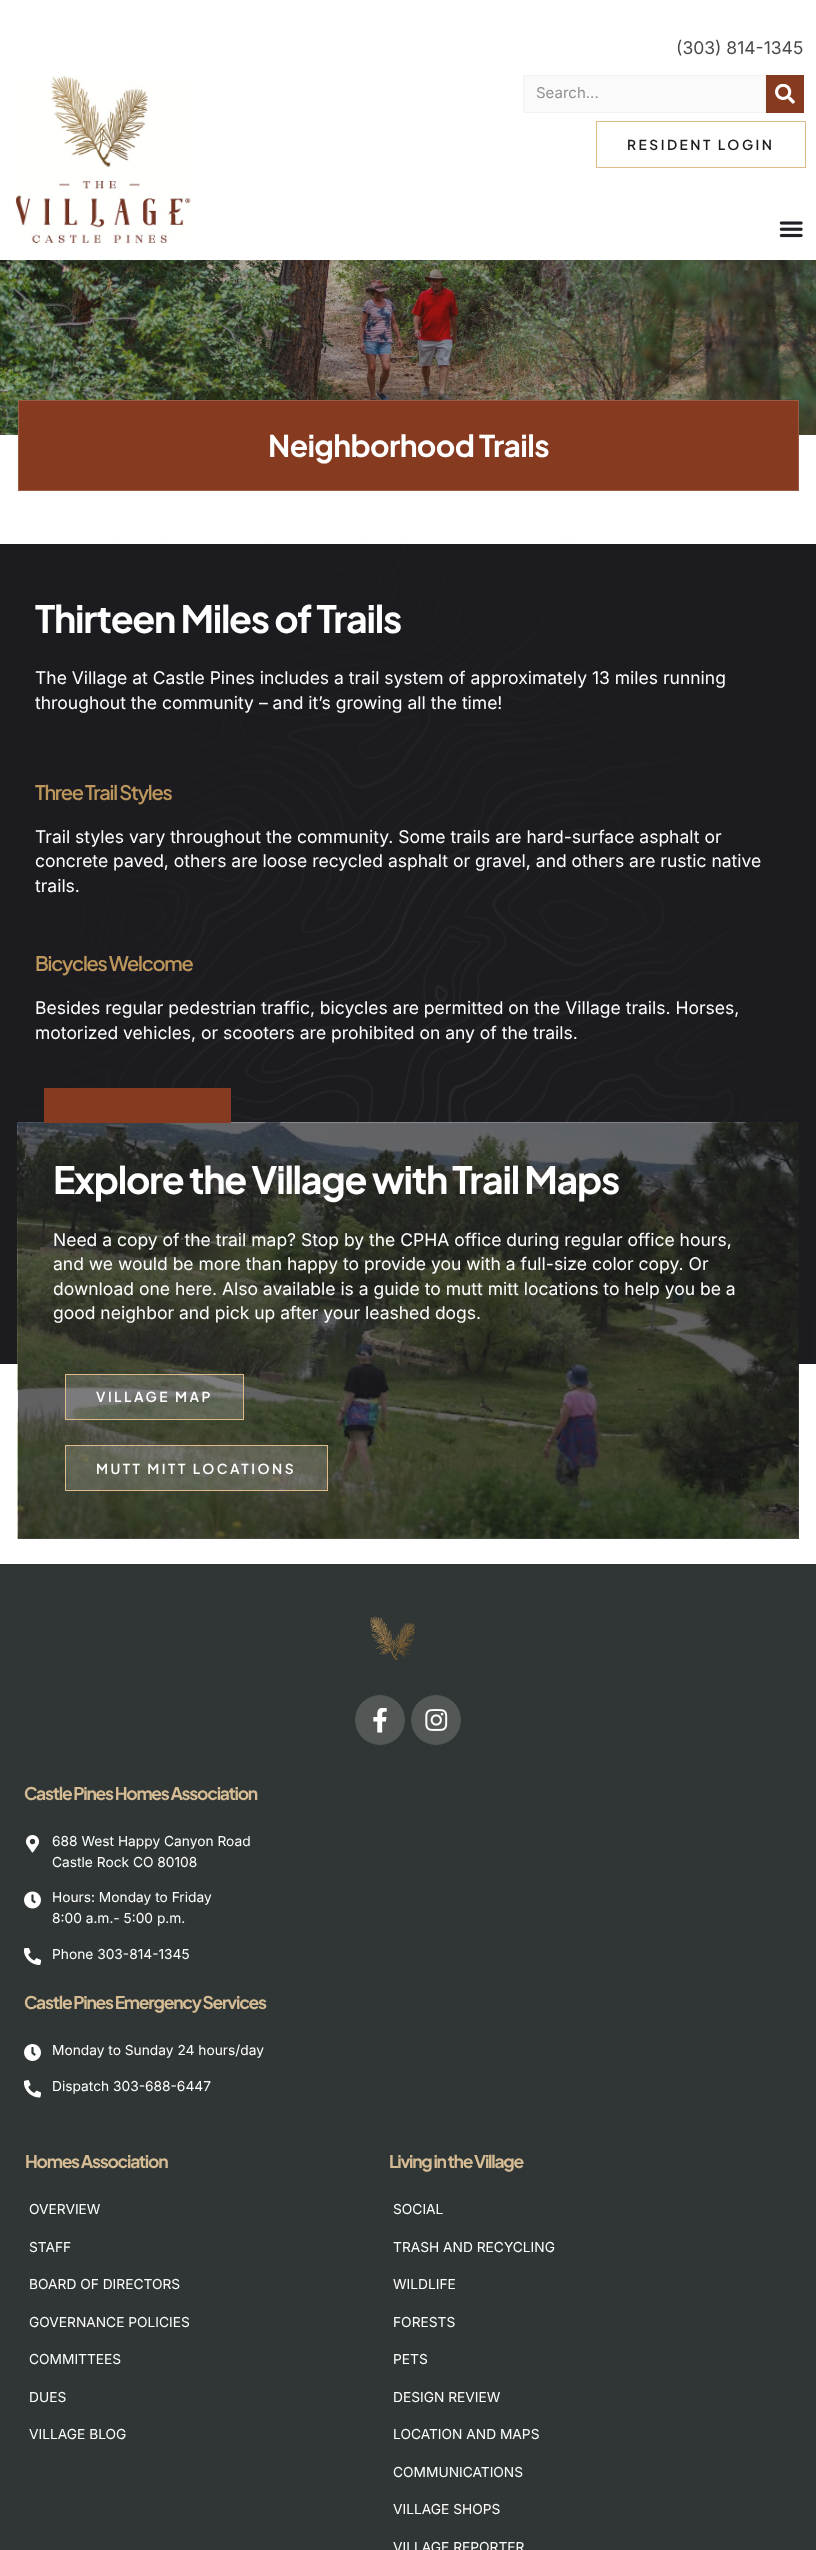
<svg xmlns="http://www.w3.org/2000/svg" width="816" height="2550">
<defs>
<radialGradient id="g1" gradientUnits="userSpaceOnUse" cx="0" cy="0" r="1" gradientTransform="matrix(577 0 0 1160 408 1364)"><stop offset="0" stop-color="#1c1c20" stop-opacity="0.9"/><stop offset="0.75" stop-color="#1c1c20"/></radialGradient>
</defs>
<rect width="100%" height="100%" fill="#fff"/>
<image x="15" y="75" width="177" height="169" href="media/1.png"/>
<text x="676" y="54" style="font-family:Inter;font-size:17.5px;fill:#494949">(303) 814-1345</text>
<rect x="523.5" y="75.5" width="242" height="37" fill="#fafafa" stroke="#f3f3f4"/>
<text x="536" y="98" style="font-family:Inter;font-size:15px;fill:#909090">Search...</text>
<rect x="766" y="75" width="38" height="38" fill="#863a20"/>
<image x="775" y="84" width="20" height="20" href="media/2.png"/>
<rect x="596.5" y="121.5" width="209" height="46" fill="none" stroke="#debb88"/>
<text x="627" y="150" style="font-family:Plus Jakarta Sans;font-size:13.75px;font-weight:600;letter-spacing:2.5px;fill:#1c1c20">RESIDENT LOGIN</text>
<image x="779" y="221" width="24" height="17" href="media/3.png"/>
<image x="0" y="260" width="816" height="175" href="media/4.png"/>
<rect x="18.5" y="400.5" width="780" height="90" fill="#863a20" stroke="#9b5b46"/>
<text x="268" y="457" style="font-family:Plus Jakarta Sans;font-size:30px;font-weight:bold;letter-spacing:-0.6px;fill:#fff">Neighborhood Trails</text>
<rect x="2" y="544" width="812" height="820" fill="#1c1c20"/>
<image x="6" y="543" width="807" height="821" href="media/5.png"/>
<rect y="544" width="816" height="820" fill="url(#g1)"/>
<text x="35" y="633" style="font-family:Plus Jakarta Sans;font-size:37.5px;font-weight:bold;letter-spacing:-1.25px;fill:#fff">Thirteen Miles of Trails</text>
<text x="35" y="684" style="font-family:Inter;font-size:17.5px;fill:#fff">The Village at Castle Pines includes a trail system of approximately 13 miles running</text>
<text x="35" y="709" style="font-family:Inter;font-size:17.5px;fill:#fff">throughout the community – and it’s growing all the time!</text>
<text x="35" y="800" style="font-family:Plus Jakarta Sans;font-size:20px;font-weight:600;letter-spacing:-1.25px;fill:#bd965c">Three Trail Styles</text>
<text x="35" y="843" style="font-family:Inter;font-size:17.5px;fill:#fff">Trail styles vary throughout the community. Some trails are hard-surface asphalt or</text>
<text x="35" y="867" style="font-family:Inter;font-size:17.5px;fill:#fff">concrete paved, others are loose recycled asphalt or gravel, and others are rustic native</text>
<text x="35" y="892" style="font-family:Inter;font-size:17.5px;fill:#fff">trails.</text>
<text x="35" y="971" style="font-family:Plus Jakarta Sans;font-size:20px;font-weight:600;letter-spacing:-1.25px;fill:#bd965c">Bicycles Welcome</text>
<text x="35" y="1014" style="font-family:Inter;font-size:17.5px;fill:#fff">Besides regular pedestrian traffic, bicycles are permitted on the Village trails. Horses,</text>
<text x="35" y="1039" style="font-family:Inter;font-size:17.5px;fill:#fff">motorized vehicles, or scooters are prohibited on any of the trails.</text>
<image x="17" y="1122" width="782" height="417" href="media/6.png"/>
<rect x="18" y="1123" width="781" height="416" fill="#1c1c20ab"/>
<rect x="44" y="1088" width="187" height="35" fill="#863a20"/>
<text x="53" y="1194" style="font-family:Plus Jakarta Sans;font-size:37.5px;font-weight:bold;letter-spacing:-1.25px;fill:#fff">Explore the Village with Trail Maps</text>
<text x="53" y="1246" style="font-family:Inter;font-size:17.5px;fill:#fff">Need a copy of the trail map? Stop by the CPHA office during regular office hours,</text>
<text x="53" y="1270" style="font-family:Inter;font-size:17.5px;fill:#fff">and we would be more than happy to provide you with a full-size color copy. Or</text>
<text x="53" y="1295" style="font-family:Inter;font-size:17.5px;fill:#fff">download one here. Also available is a guide to mutt mitt locations to help you be a</text>
<text x="53" y="1319" style="font-family:Inter;font-size:17.5px;fill:#fff">good neighbor and pick up after your leashed dogs.</text>
<rect x="65.5" y="1374.5" width="178" height="45" fill="#ffffff2b" stroke="#debb88"/>
<text x="96" y="1402" style="font-family:Plus Jakarta Sans;font-size:13.75px;font-weight:600;letter-spacing:2.5px;fill:#fff">VILLAGE MAP</text>
<rect x="65.5" y="1445.5" width="262" height="45" fill="#ffffff2b" stroke="#debb88"/>
<text x="96" y="1474" style="font-family:Plus Jakarta Sans;font-size:13.75px;font-weight:600;letter-spacing:2.5px;fill:#fff">MUTT MITT LOCATIONS</text>
<rect y="1564" width="816" height="986" fill="#303635"/>
<image x="370" y="1616" width="45" height="44" href="media/7.png"/>
<circle cx="380" cy="1720" r="25" fill="#535857"/>
<image x="373" y="1708" width="14" height="25" href="media/8.png"/>
<circle cx="436" cy="1720" r="25" fill="#535857"/>
<image x="425" y="1709" width="23" height="22" href="media/9.png"/>
<text x="24" y="1800" style="font-family:Plus Jakarta Sans;font-size:17.5px;font-weight:bold;letter-spacing:-1.25px;fill:#d6bc94">Castle Pines Homes Association</text>
<image x="25" y="1835" width="15" height="18" href="media/10.png"/>
<text x="52" y="1846" style="font-family:Inter;font-size:13.75px;fill:#fff">688 West Happy Canyon Road</text>
<text x="52" y="1867" style="font-family:Inter;font-size:13.75px;fill:#fff">Castle Rock CO 80108</text>
<image x="24" y="1891" width="17" height="18" href="media/11.png"/>
<text x="52" y="1902" style="font-family:Inter;font-size:13.75px;fill:#fff">Hours: Monday to Friday</text>
<text x="52" y="1923" style="font-family:Inter;font-size:13.75px;fill:#fff">8:00 a.m.- 5:00 p.m.</text>
<image x="24" y="1948" width="17" height="17" href="media/12.png"/>
<text x="52" y="1959" style="font-family:Inter;font-size:13.75px;fill:#fff">Phone 303-814-1345</text>
<text x="24" y="2009" style="font-family:Plus Jakarta Sans;font-size:17.5px;font-weight:bold;letter-spacing:-1.25px;fill:#d6bc94">Castle Pines Emergency Services</text>
<image x="24" y="2044" width="17" height="17" href="media/13.png"/>
<text x="52" y="2055" style="font-family:Inter;font-size:13.75px;fill:#fff">Monday to Sunday 24 hours/day</text>
<image x="24" y="2080" width="17" height="18" href="media/14.png"/>
<text x="52" y="2091" style="font-family:Inter;font-size:13.75px;fill:#fff">Dispatch 303-688-6447</text>
<text x="25" y="2168" style="font-family:Plus Jakarta Sans;font-size:17.5px;font-weight:bold;letter-spacing:-1.25px;fill:#d6bc94">Homes Association</text>
<text x="29" y="2214" style="font-family:Inter;font-size:13.75px;fill:#fff">OVERVIEW</text>
<text x="29" y="2252" style="font-family:Inter;font-size:13.75px;fill:#fff">STAFF</text>
<text x="29" y="2289" style="font-family:Inter;font-size:13.75px;fill:#fff">BOARD OF DIRECTORS</text>
<text x="29" y="2327" style="font-family:Inter;font-size:13.75px;fill:#fff">GOVERNANCE POLICIES</text>
<text x="29" y="2364" style="font-family:Inter;font-size:13.75px;fill:#fff">COMMITTEES</text>
<text x="29" y="2402" style="font-family:Inter;font-size:13.75px;fill:#fff">DUES</text>
<text x="29" y="2439" style="font-family:Inter;font-size:13.75px;fill:#fff">VILLAGE BLOG</text>
<text x="389" y="2168" style="font-family:Plus Jakarta Sans;font-size:17.5px;font-weight:bold;letter-spacing:-1.25px;fill:#d6bc94">Living in the Village</text>
<text x="393" y="2214" style="font-family:Inter;font-size:13.75px;fill:#fff">SOCIAL</text>
<text x="393" y="2252" style="font-family:Inter;font-size:13.75px;fill:#fff">TRASH AND RECYCLING</text>
<text x="393" y="2289" style="font-family:Inter;font-size:13.75px;fill:#fff">WILDLIFE</text>
<text x="393" y="2327" style="font-family:Inter;font-size:13.75px;fill:#fff">FORESTS</text>
<text x="393" y="2364" style="font-family:Inter;font-size:13.75px;fill:#fff">PETS</text>
<text x="393" y="2402" style="font-family:Inter;font-size:13.75px;fill:#fff">DESIGN REVIEW</text>
<text x="393" y="2439" style="font-family:Inter;font-size:13.75px;fill:#fff">LOCATION AND MAPS</text>
<text x="393" y="2477" style="font-family:Inter;font-size:13.75px;fill:#fff">COMMUNICATIONS</text>
<text x="393" y="2514" style="font-family:Inter;font-size:13.75px;fill:#fff">VILLAGE SHOPS</text>
<text x="393" y="2552" style="font-family:Inter;font-size:13.75px;fill:#fff">VILLAGE REPORTER</text>
</svg>
